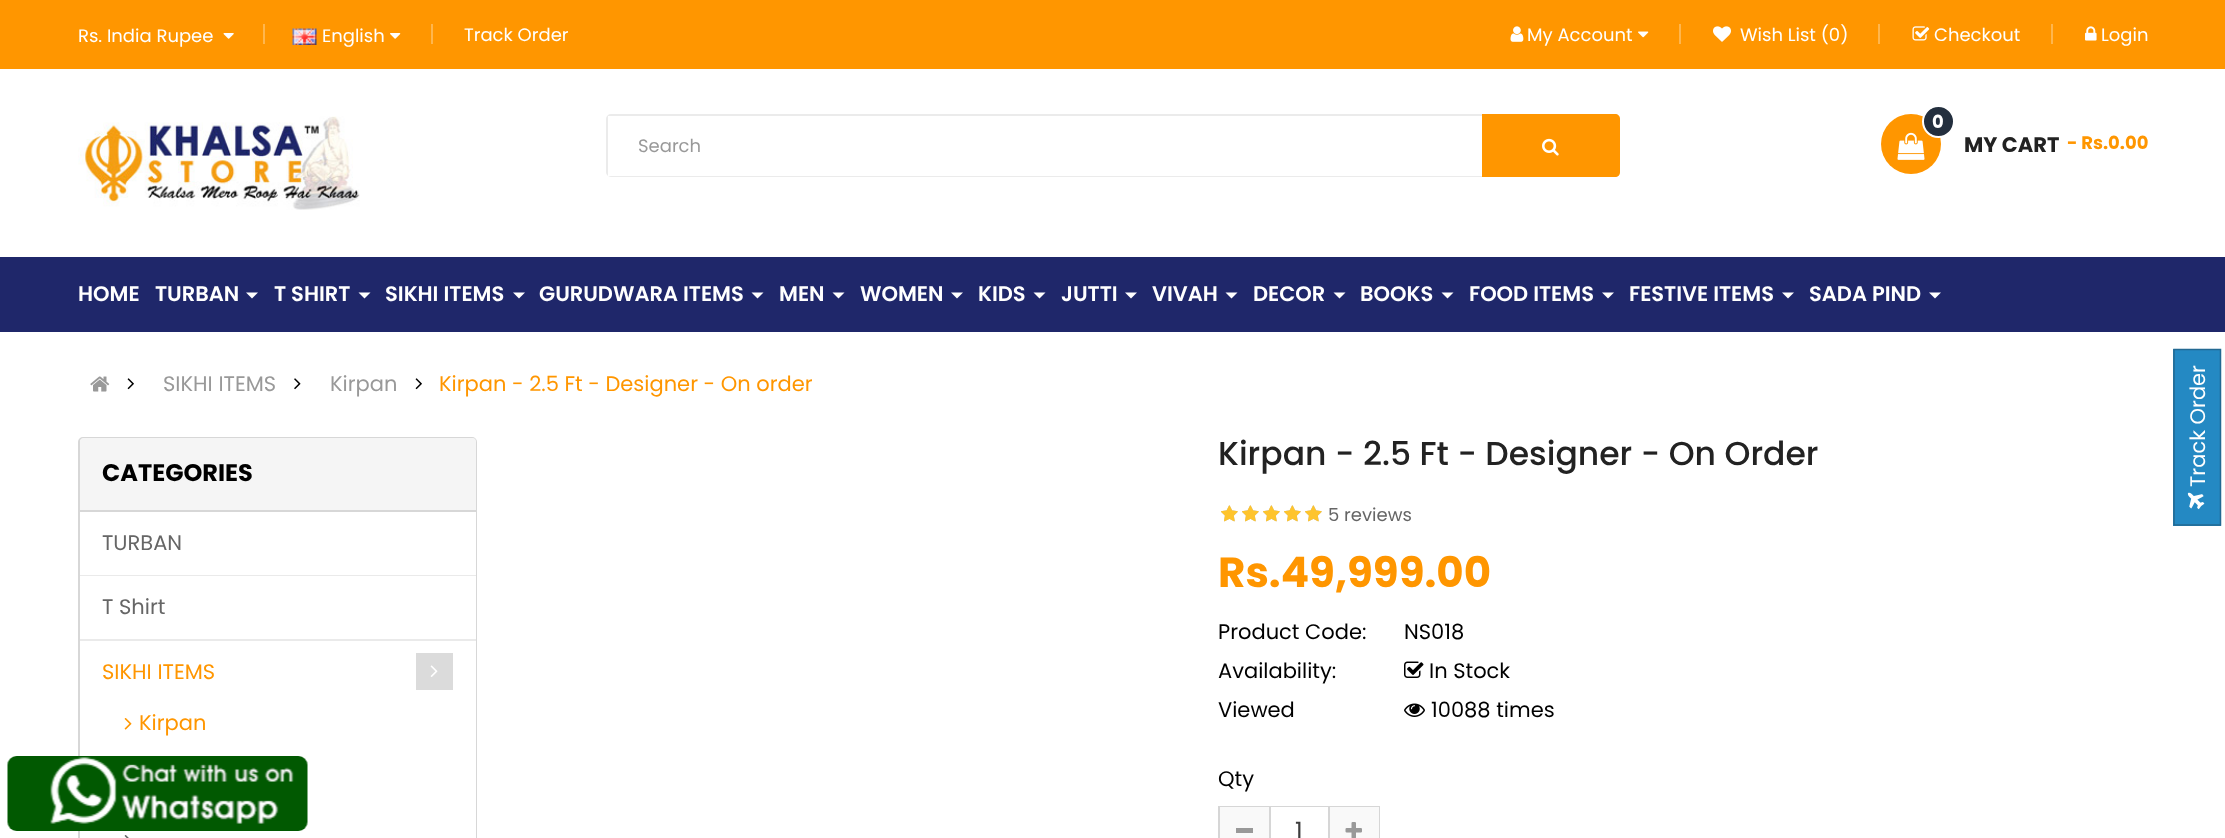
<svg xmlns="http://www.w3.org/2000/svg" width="2225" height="838">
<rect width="100%" height="100%" fill="#fff"/>
<rect width="2225" height="69" fill="#ff9600"/>
<text x="78" y="42" style="font-family:Poppins;font-size:18px;fill:#fff">Rs. India Rupee</text>
<image x="223" y="33" width="11" height="6" href="media/1.png"/>
<rect x="263" y="24" width="2" height="20" fill="#ffb64d"/>
<image x="292" y="28" width="25" height="17" href="media/2.png"/>
<text x="322" y="42" style="font-family:Poppins;font-size:18px;fill:#fff">English</text>
<image x="390" y="33" width="11" height="6" href="media/3.png"/>
<rect x="431" y="24" width="2" height="20" fill="#ffb64d"/>
<text x="464" y="41" style="font-family:Poppins;font-size:18px;fill:#fff">Track Order</text>
<image x="1510" y="26" width="14" height="16" href="media/4.png"/>
<text x="1527" y="41" style="font-family:Poppins;font-size:18px;fill:#fff">My Account</text>
<image x="1638" y="31" width="11" height="7" href="media/5.png"/>
<rect x="1679" y="24" width="2" height="20" fill="#ffb64d"/>
<image x="1713" y="26" width="18" height="16" href="media/6.png"/>
<text x="1740" y="41" style="font-family:Poppins;font-size:18px;fill:#fff">Wish List (0)</text>
<rect x="1878" y="24" width="2" height="20" fill="#ffb64d"/>
<image x="1912" y="26" width="18" height="15" href="media/7.png"/>
<text x="1934" y="41" style="font-family:Poppins;font-size:18px;fill:#fff">Checkout</text>
<rect x="2051" y="24" width="2" height="20" fill="#ffb64d"/>
<image x="2085" y="26" width="12" height="15" href="media/8.png"/>
<text x="2101" y="41" style="font-family:Poppins;font-size:18px;fill:#fff">Login</text>
<image x="78" y="116" width="282" height="94" href="media/9.png"/>
<rect x="607" y="115" width="1012" height="61" rx="4" fill="none" stroke="#ebebeb" stroke-width="2"/>
<path d="M608 116h1005c3.5 0 6 2.5 6 6v48c0 3.5-2.5 6-6 6h-1005z" fill="#fff"/>
<text x="638" y="152" style="font-family:Poppins;font-size:18px;fill:#999">Search</text>
<path d="M1482 114h133c3 0 5 2 5 5v53c0 3-2 5-5 5h-133z" fill="#ff9600"/>
<image x="1542" y="138" width="17" height="18" href="media/10.png"/>
<circle cx="1911" cy="144" r="30" fill="#ff9600"/>
<image x="1897" y="132" width="28" height="28" href="media/11.png"/>
<circle cx="1938.5" cy="121.5" r="15.5" fill="#232f3e" stroke="#fff" stroke-width="2"/>
<text x="1932" y="128" style="font-family:Poppins;font-size:18px;font-weight:bold;fill:#fff">0</text>
<text x="2067" y="149" style="font-family:Poppins;font-size:18px;font-weight:bold;fill:#ff9600">- Rs.0.00</text>
<text x="1964" y="152" style="font-family:Poppins;font-size:21px;font-weight:bold;fill:#222">MY CART</text>
<rect y="257" width="2225" height="75" fill="#1f276a"/>
<text x="78" y="301" style="font-family:Poppins;font-size:21px;font-weight:600;fill:#fff">HOME</text>
<text x="155" y="301" style="font-family:Poppins;font-size:21px;font-weight:600;fill:#fff">TURBAN</text>
<path d="M246 292.5h12l-6 6z" fill="#fff"/>
<text x="274" y="301" style="font-family:Poppins;font-size:21px;font-weight:600;fill:#fff">T SHIRT</text>
<path d="M358.5 292.5h12l-6 6z" fill="#fff"/>
<text x="385" y="301" style="font-family:Poppins;font-size:21px;font-weight:600;fill:#fff">SIKHI ITEMS</text>
<path d="M513 292.5h12l-6 6z" fill="#fff"/>
<text x="539" y="301" style="font-family:Poppins;font-size:21px;font-weight:600;fill:#fff">GURUDWARA ITEMS</text>
<path d="M751.5 292.5h12l-6 6z" fill="#fff"/>
<text x="779" y="301" style="font-family:Poppins;font-size:21px;font-weight:600;fill:#fff">MEN</text>
<path d="M832.5 292.5h12l-6 6z" fill="#fff"/>
<text x="860" y="301" style="font-family:Poppins;font-size:21px;font-weight:600;fill:#fff">WOMEN</text>
<path d="M951 292.5h12l-6 6z" fill="#fff"/>
<text x="978" y="301" style="font-family:Poppins;font-size:21px;font-weight:600;fill:#fff">KIDS</text>
<path d="M1033.5 292.5h12l-6 6z" fill="#fff"/>
<text x="1061" y="301" style="font-family:Poppins;font-size:21px;font-weight:600;fill:#fff">JUTTI</text>
<path d="M1125 292.5h12l-6 6z" fill="#fff"/>
<text x="1152" y="301" style="font-family:Poppins;font-size:21px;font-weight:600;fill:#fff">VIVAH</text>
<path d="M1225.5 292.5h12l-6 6z" fill="#fff"/>
<text x="1253" y="301" style="font-family:Poppins;font-size:21px;font-weight:600;fill:#fff">DECOR</text>
<path d="M1333.5 292.5h12l-6 6z" fill="#fff"/>
<text x="1360" y="301" style="font-family:Poppins;font-size:21px;font-weight:600;fill:#fff">BOOKS</text>
<path d="M1441.5 292.5h12l-6 6z" fill="#fff"/>
<text x="1469" y="301" style="font-family:Poppins;font-size:21px;font-weight:600;fill:#fff">FOOD ITEMS</text>
<path d="M1602 292.5h12l-6 6z" fill="#fff"/>
<text x="1629" y="301" style="font-family:Poppins;font-size:21px;font-weight:600;fill:#fff">FESTIVE ITEMS</text>
<path d="M1782 292.5h12l-6 6z" fill="#fff"/>
<text x="1809" y="301" style="font-family:Poppins;font-size:21px;font-weight:600;fill:#fff">SADA PIND</text>
<path d="M1929 292.5h12l-6 6z" fill="#fff"/>
<image x="90" y="376" width="20" height="16" href="media/12.png"/>
<image x="127" y="378" width="7" height="12" href="media/13.png"/>
<text x="163" y="391" style="font-family:Poppins;font-size:21px;fill:#999">SIKHI ITEMS</text>
<image x="294" y="378" width="7" height="12" href="media/14.png"/>
<text x="330" y="391" style="font-family:Poppins;font-size:21px;fill:#999">Kirpan</text>
<image x="415" y="378" width="7" height="12" href="media/13.png"/>
<text x="439" y="391" style="font-family:Poppins;font-size:21px;fill:#ff9600">Kirpan - 2.5 Ft - Designer - On order</text>
<rect x="79" y="438" width="397" height="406" rx="4" fill="none" stroke="#d7d7d7" stroke-width="2"/>
<path d="M83 438h390c1.5 0 3 1.5 3 3v71h-396v-71c0-1.5 1.5-3 3-3z" fill="#f5f5f5"/>
<rect x="80" y="510" width="396" height="2" fill="#d7d7d7"/>
<text x="102" y="481" style="font-family:Poppins;font-size:24px;font-weight:bold;fill:#000">CATEGORIES</text>
<rect x="475" y="512" width="1" height="63" fill="#fff"/>
<rect x="80" y="575" width="396" height="1" fill="#eaeaea"/>
<text x="102" y="550" style="font-family:Poppins;font-size:21px;fill:#666">TURBAN</text>
<rect x="475" y="576" width="1" height="63" fill="#fff"/>
<rect x="80" y="639" width="396" height="2" fill="#eaeaea"/>
<text x="102" y="614" style="font-family:Poppins;font-size:21px;fill:#666">T Shirt</text>
<rect x="475" y="641" width="1" height="197" fill="#fff"/>
<text x="102" y="679" style="font-family:Poppins;font-size:21px;fill:#ff9600">SIKHI ITEMS</text>
<rect x="416" y="653" width="37" height="37" fill="#dbdbdb"/>
<image x="430" y="665" width="8" height="12" href="media/15.png"/>
<image x="124" y="718" width="8" height="12" href="media/16.png"/>
<text x="139" y="730" style="font-family:Poppins;font-size:21px;fill:#ff9600">Kirpan</text>
<image x="124" y="835" width="5" height="3" href="media/17.png"/>
<text x="1218" y="465" style="font-family:Poppins;font-size:33px;font-weight:500;fill:#222">Kirpan - 2.5 Ft - Designer - On Order</text>
<image x="1221" y="505" width="17" height="17" href="media/18.png"/>
<image x="1221" y="505" width="17" height="17" href="media/19.png"/>
<image x="1242" y="505" width="17" height="17" href="media/18.png"/>
<image x="1242" y="505" width="17" height="17" href="media/19.png"/>
<image x="1263" y="505" width="17" height="17" href="media/18.png"/>
<image x="1263" y="505" width="17" height="17" href="media/19.png"/>
<image x="1284" y="505" width="17" height="17" href="media/18.png"/>
<image x="1284" y="505" width="17" height="17" href="media/19.png"/>
<image x="1305" y="505" width="17" height="17" href="media/18.png"/>
<image x="1305" y="505" width="17" height="17" href="media/19.png"/>
<text x="1328" y="521" style="font-family:Poppins;font-size:18px;fill:#666">5 reviews</text>
<text x="1218" y="587" style="font-family:Poppins;font-size:42px;font-weight:bold;fill:#ff9600">Rs.49,999.00</text>
<text x="1218" y="639" style="font-family:Poppins;font-size:21px;fill:#000">Product Code:</text>
<text x="1404" y="639" style="font-family:Poppins;font-size:21px;fill:#000">NS018</text>
<text x="1218" y="678" style="font-family:Poppins;font-size:21px;fill:#000">Availability:</text>
<image x="1404" y="661" width="20" height="17" href="media/20.png"/>
<text x="1429" y="678" style="font-family:Poppins;font-size:21px;fill:#000">In Stock</text>
<text x="1218" y="717" style="font-family:Poppins;font-size:21px;fill:#000">Viewed</text>
<image x="1404" y="703" width="21" height="14" href="media/21.png"/>
<text x="1431" y="717" style="font-family:Poppins;font-size:21px;fill:#000">10088 times</text>
<text x="1218" y="786" style="font-family:Poppins;font-size:21px;fill:#000">Qty</text>
<rect x="1219" y="807" width="160" height="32" fill="none" stroke="#d6d6d6" stroke-width="2"/>
<rect x="1220" y="807" width="49" height="31" fill="#f9f9f9"/>
<rect x="1236" y="828" width="17" height="5" fill="#999"/>
<rect x="1271" y="807" width="57" height="1" fill="#fff"/>
<rect x="1328" y="807" width="2" height="31" fill="#d6d6d6"/>
<rect x="1269" y="807" width="2" height="31" fill="#d6d6d6"/>
<text x="1295" y="839" style="font-family:Poppins;font-size:24px;fill:#3d3d3d">1</text>
<rect x="1330" y="807" width="49" height="31" fill="#f9f9f9"/>
<image x="1345" y="822" width="17" height="16" href="media/22.png"/>
<image x="7" y="756" width="301" height="75" href="media/23.png"/>
<rect x="2173" y="349" width="48" height="177" fill="#2489c3"/>
<path d="M2174 525v-175.5h46.5v175.5z" fill="none" stroke="#236992" stroke-width="1.5"/>
<text x="2205" y="487" transform="rotate(-90 2205 487)" style="font-family:Poppins;font-size:21px;fill:#fff">Track Order</text>
<image x="2187" y="492" width="18" height="18" href="media/24.png"/>
</svg>
